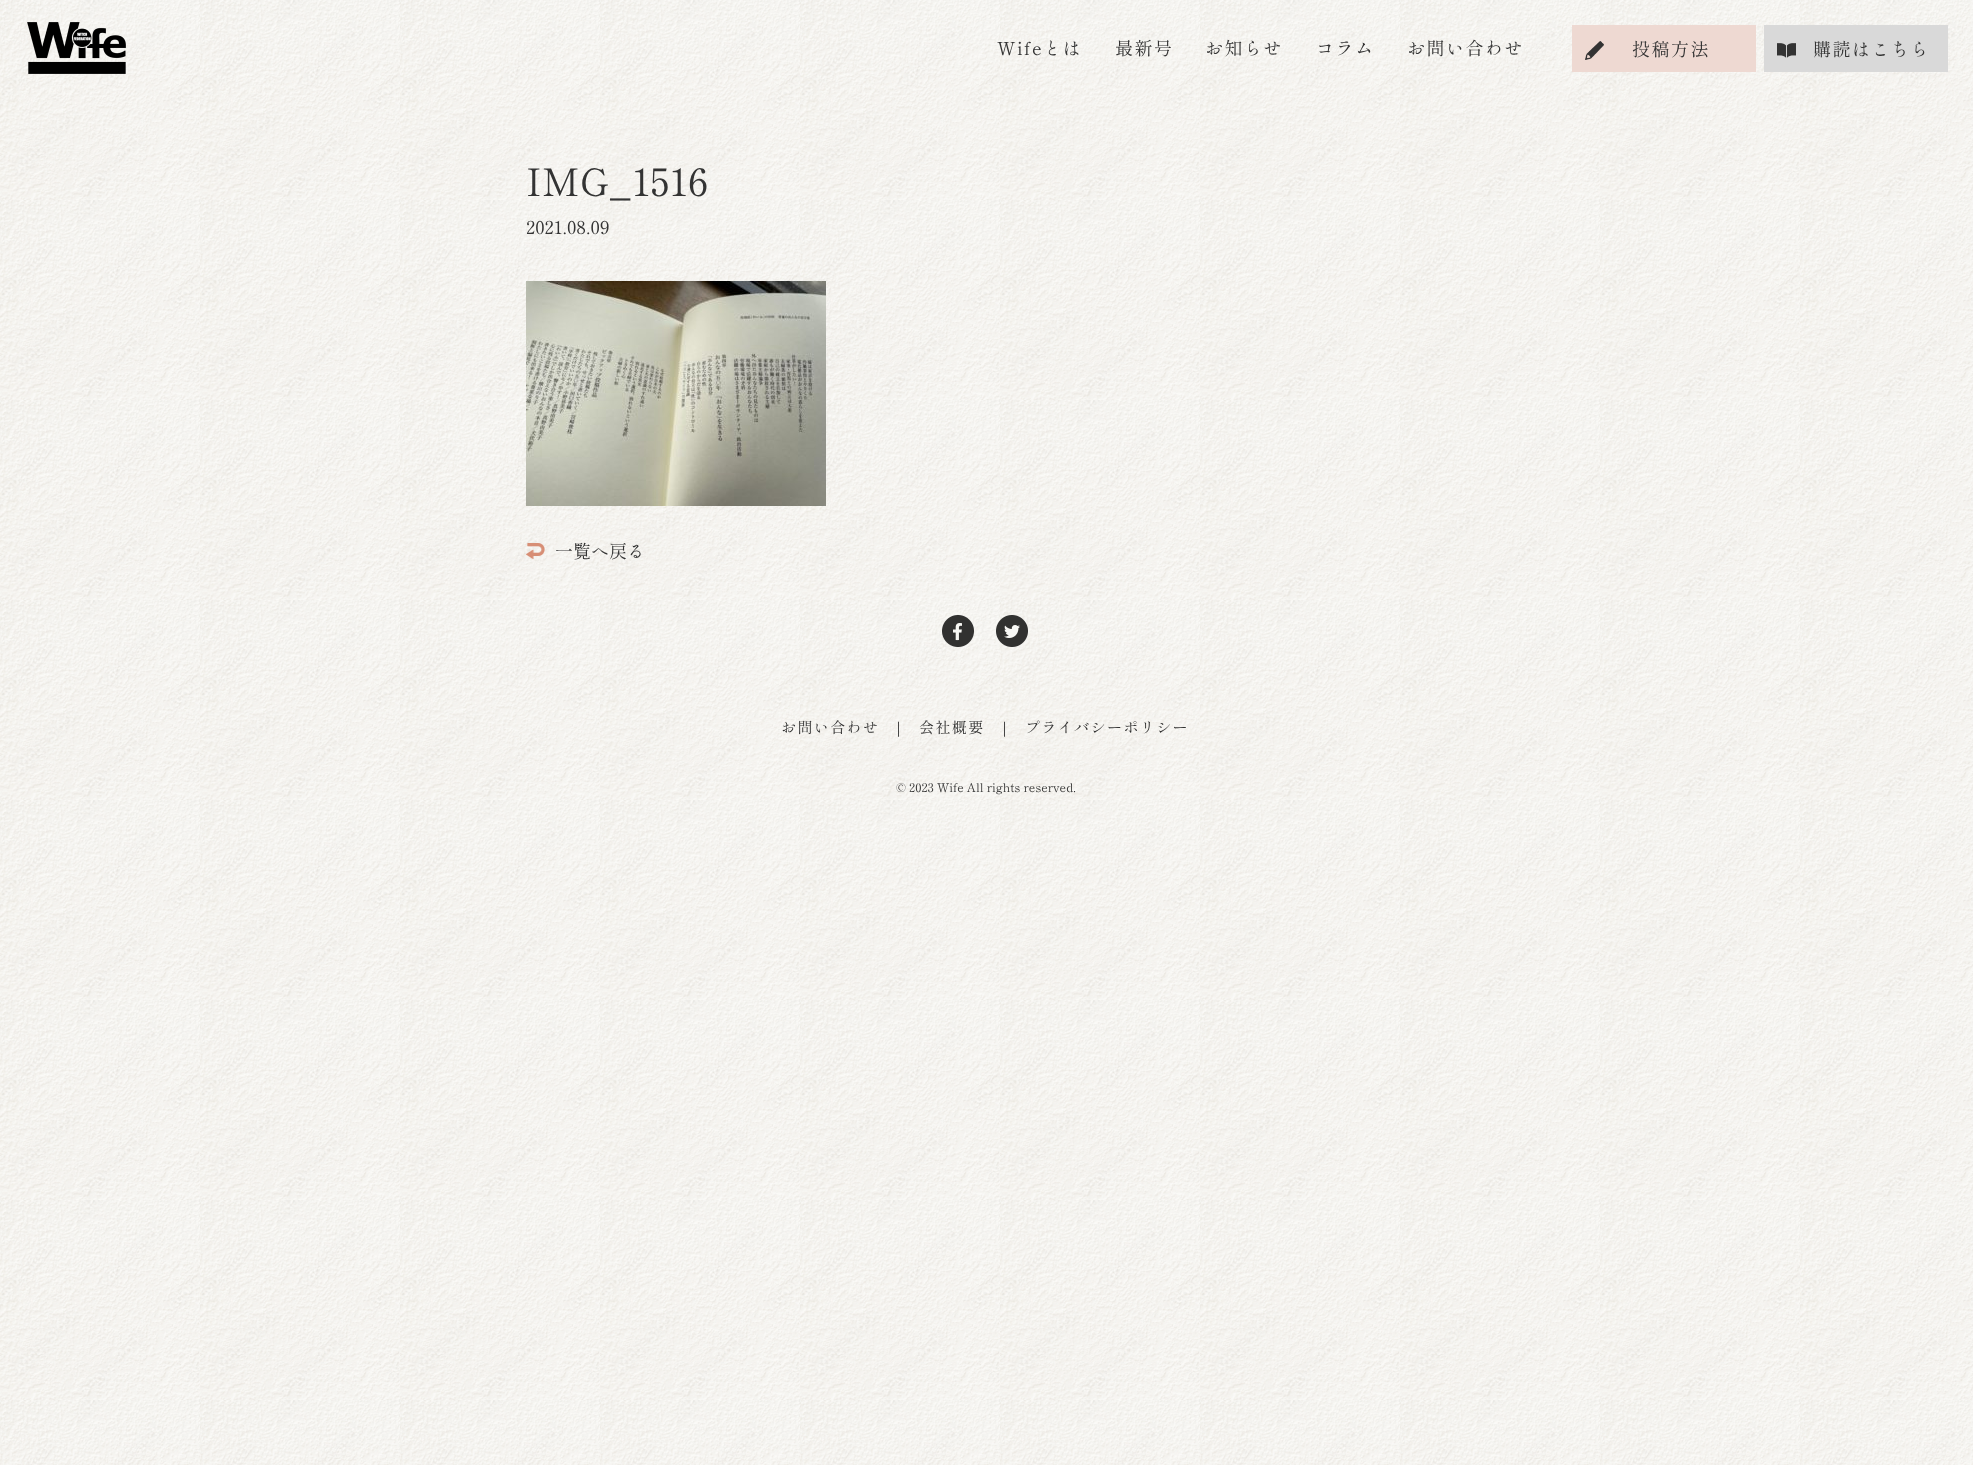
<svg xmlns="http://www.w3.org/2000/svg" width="1973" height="1465">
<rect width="100%" height="100%" fill="#fff"/>
<image x="0" y="0" width="1973" height="1465" href="media/1.png"/>
<image x="27" y="22" width="99" height="52" href="media/2.png"/>
<text x="997" y="55" style="font-family:Shippori Mincho;font-size:18px;letter-spacing:1.5px;fill:#333">Wifeとは</text>
<text x="1115" y="55" style="font-family:Shippori Mincho;font-size:18px;letter-spacing:1.5px;fill:#333">最新号</text>
<text x="1205" y="55" style="font-family:Shippori Mincho;font-size:18px;letter-spacing:1.5px;fill:#333">お知らせ</text>
<text x="1316" y="55" style="font-family:Shippori Mincho;font-size:18px;letter-spacing:1.5px;fill:#333">コラム</text>
<text x="1407" y="55" style="font-family:Shippori Mincho;font-size:18px;letter-spacing:1.5px;fill:#333">お問い合わせ</text>
<rect x="1572" y="25" width="184" height="47" fill="#eed9d2"/>
<image x="1585" y="41" width="19" height="19" href="media/3.png"/>
<text x="1632" y="56" style="font-family:Shippori Mincho;font-size:18px;letter-spacing:1.5px;fill:#333">投稿方法</text>
<rect x="1764" y="25" width="184" height="47" fill="#d9d9d9"/>
<image x="1777" y="43" width="19" height="15" href="media/4.png"/>
<text x="1813" y="56" style="font-family:Shippori Mincho;font-size:18px;letter-spacing:1.5px;fill:#333">購読はこちら</text>
<text x="526" y="196" style="font-family:Shippori Mincho;font-size:38px;fill:#333">IMG_1516</text>
<text x="526" y="234" style="font-family:Shippori Mincho;font-size:18px;fill:#333">2021.08.09</text>
<image x="526" y="281" width="300" height="225" href="media/5.png"/>
<image x="526" y="543" width="19" height="16" href="media/6.png"/>
<text x="555" y="558" style="font-family:Shippori Mincho;font-size:18px;fill:#333">一覧へ戻る</text>
<image x="942" y="615" width="32" height="32" href="media/7.png"/>
<image x="996" y="615" width="32" height="32" href="media/8.png"/>
<text x="781" y="733" style="font-family:Shippori Mincho;font-size:15px;letter-spacing:1.4px;fill:#333">お問い合わせ</text>
<text x="891" y="733" style="font-family:WenQuanYi Zen Hei;font-size:15px;font-weight:500;letter-spacing:1.4px;fill:#333">｜</text>
<text x="919" y="733" style="font-family:Shippori Mincho;font-size:15px;letter-spacing:1.4px;fill:#333">会社概要</text>
<text x="997" y="733" style="font-family:WenQuanYi Zen Hei;font-size:15px;font-weight:500;letter-spacing:1.4px;fill:#333">｜</text>
<text x="1025" y="733" style="font-family:Shippori Mincho;font-size:15px;letter-spacing:1.4px;fill:#333">プライバシーポリシー</text>
<text x="896" y="792" style="font-family:Shippori Mincho;font-size:12px;fill:#333">© 2023 Wife All rights reserved.</text>
</svg>
